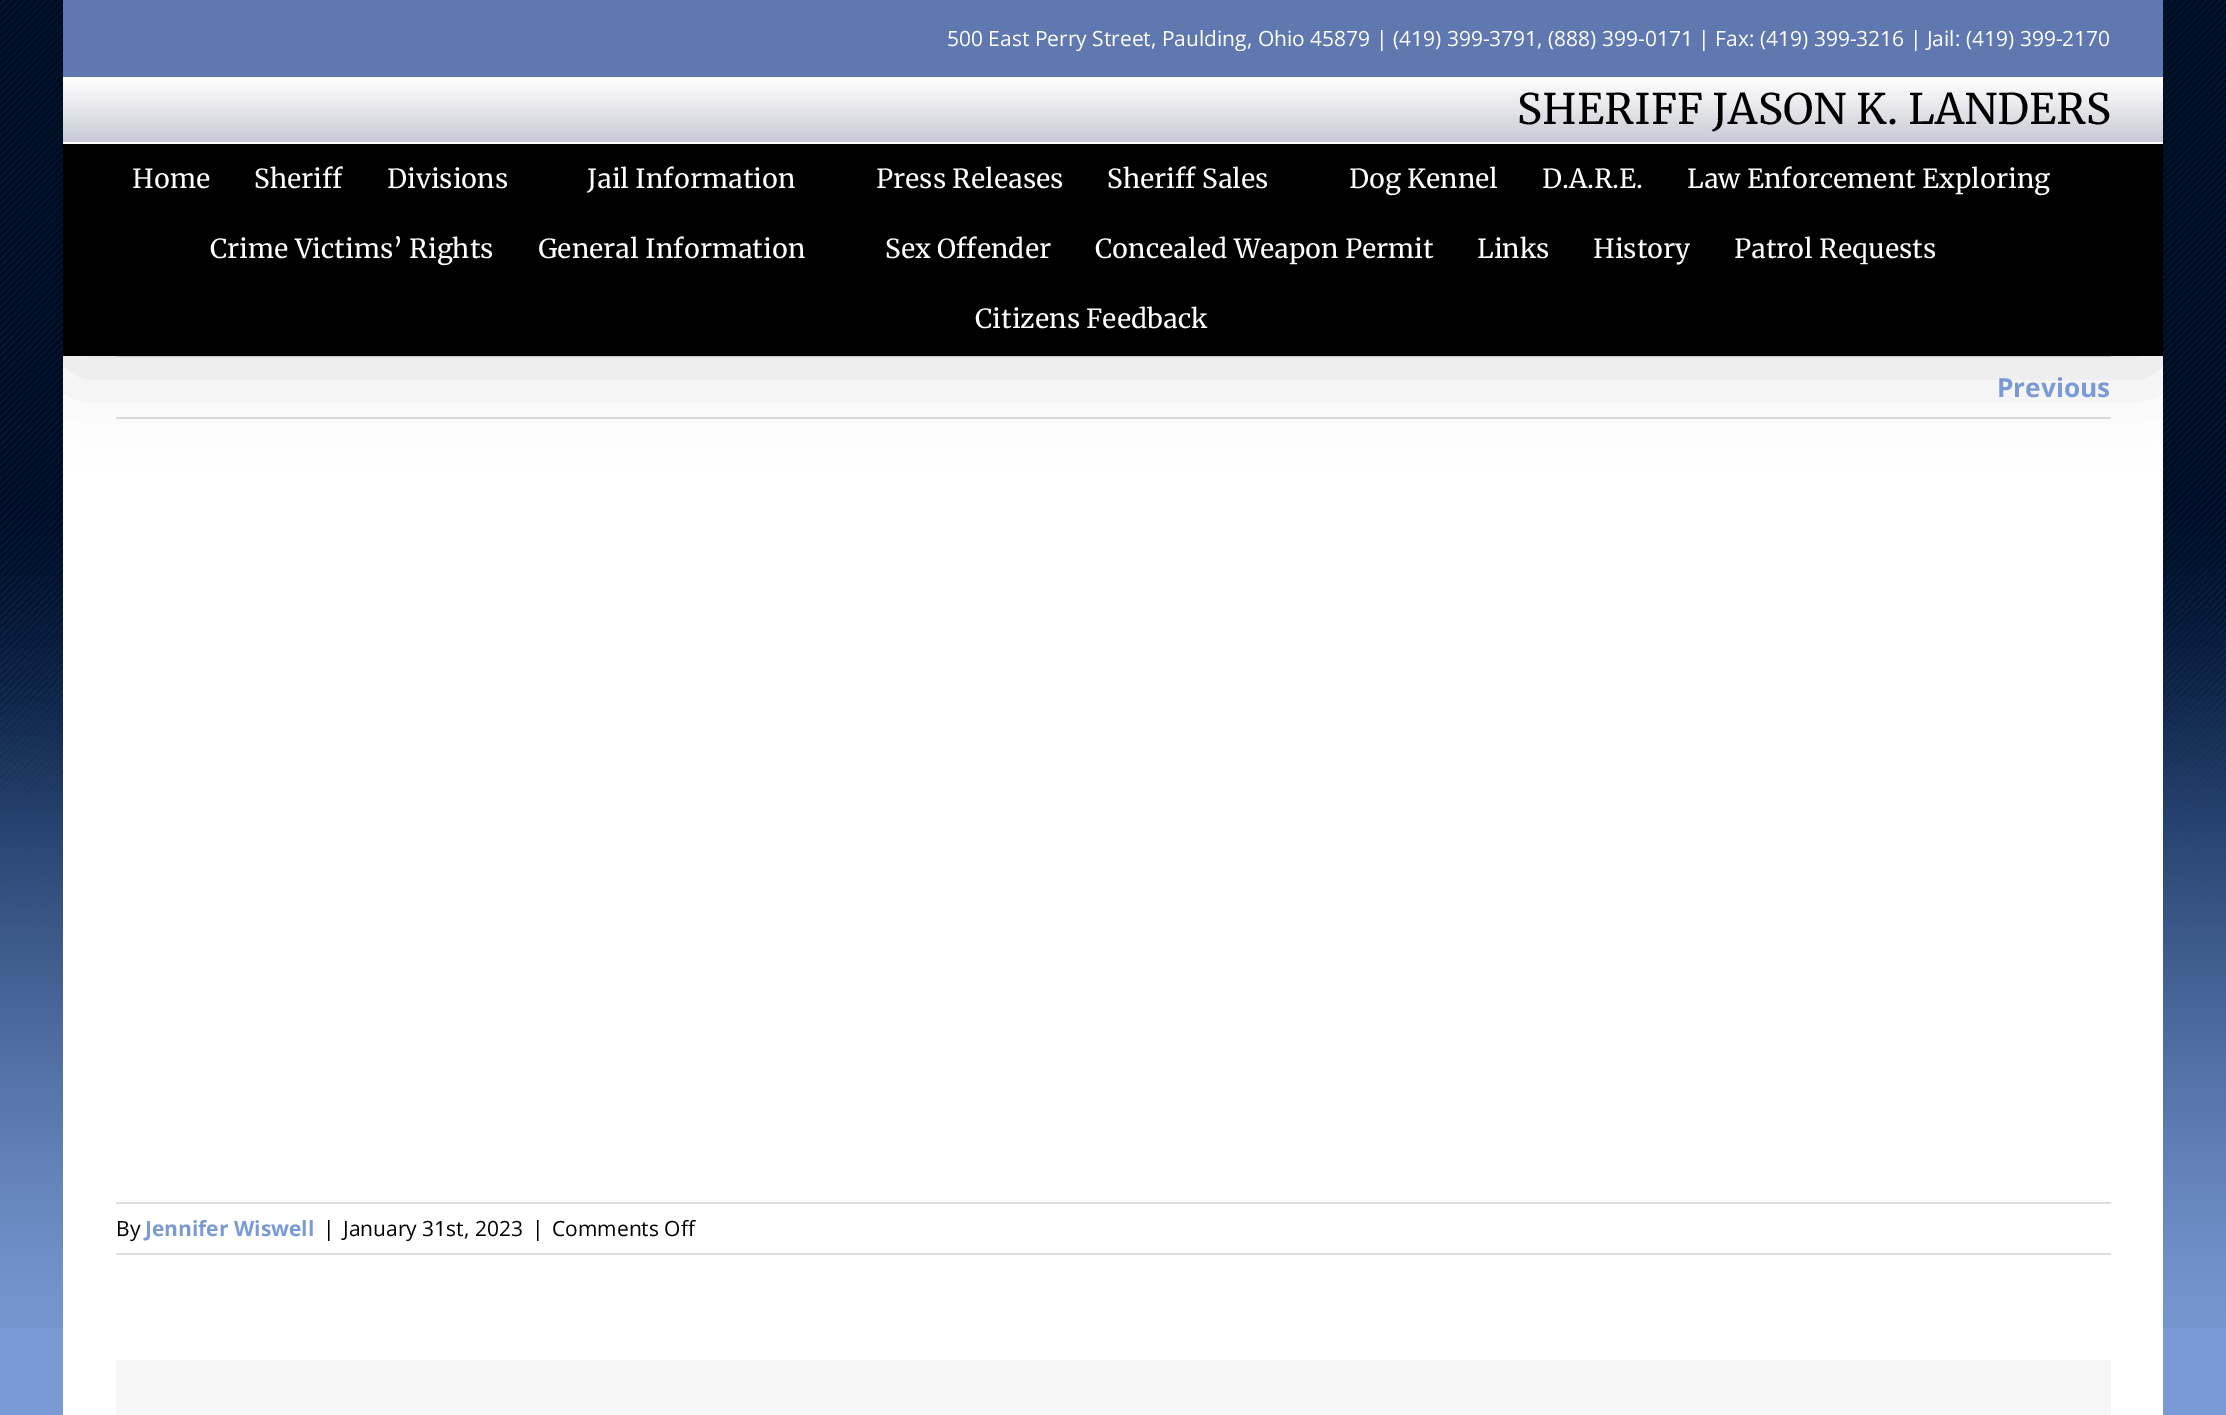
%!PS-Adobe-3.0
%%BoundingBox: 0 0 2226 1415
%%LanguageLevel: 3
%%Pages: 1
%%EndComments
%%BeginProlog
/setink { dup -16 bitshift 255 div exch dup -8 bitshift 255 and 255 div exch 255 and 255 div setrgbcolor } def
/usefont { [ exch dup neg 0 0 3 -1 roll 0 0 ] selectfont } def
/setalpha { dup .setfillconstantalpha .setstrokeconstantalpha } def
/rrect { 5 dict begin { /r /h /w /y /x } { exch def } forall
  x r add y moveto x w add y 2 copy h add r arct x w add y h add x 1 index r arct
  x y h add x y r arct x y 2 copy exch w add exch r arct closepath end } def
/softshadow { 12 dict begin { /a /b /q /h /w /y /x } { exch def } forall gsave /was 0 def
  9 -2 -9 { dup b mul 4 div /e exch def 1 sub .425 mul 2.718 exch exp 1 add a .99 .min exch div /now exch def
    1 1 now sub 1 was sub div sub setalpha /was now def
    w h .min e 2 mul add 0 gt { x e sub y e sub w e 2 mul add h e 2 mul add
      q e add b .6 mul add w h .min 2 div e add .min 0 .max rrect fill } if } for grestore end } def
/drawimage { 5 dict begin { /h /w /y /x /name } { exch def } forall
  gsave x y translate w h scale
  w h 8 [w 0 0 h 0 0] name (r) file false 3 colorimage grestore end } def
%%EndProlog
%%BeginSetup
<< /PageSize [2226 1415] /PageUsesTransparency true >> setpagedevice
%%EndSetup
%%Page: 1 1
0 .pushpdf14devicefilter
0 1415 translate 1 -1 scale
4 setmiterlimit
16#799AD4 setink
0 0 2226 1415 rectfill
(img1.raw) 0 0 2226 1328 drawimage
[
    [63 356 2100 1059 16#FFFFFF]
    [116 356 1995 1 16#E0DEDE]
    [116 417 1995 2 16#E0DEDE]
] { aload pop setink rectfill } forall
16#000000 setink
67 21 2093 348 0 44 0.14 softshadow
16#6078B0 setink
63 0 2100 77 rectfill
16#FFFFFF setink
63 77 2100 2 rectfill
/OpenSans-Regular 21 usefont
947 46 moveto (500 East Perry Street, Paulding, Ohio 45879 | \(419\) 399-3791, \(888\) 399-0171 | Fax: \(419\) 399-3216 | Jail: \(419\) 399-2170) show
63 142 2100 2 rectfill
gsave 63 79 moveto 2163 79 lineto 2163 142 lineto 63 142 lineto closepath clip newpath
<< /ShadingType 2 /ColorSpace /DeviceRGB /Coords [1113 79 1113 142] /Extend [true true] /Function << /FunctionType 2 /Domain [0 1] /C0 [1 1 1] /C1 [0.788 0.788 0.835] /N 1 >> >> shfill grestore
/Merriweather-Regular 42 usefont
16#000000 setink
1517 124 moveto (SHERIFF JASON K. LANDERS) show
63 144 2100 212 rectfill
/Merriweather-Regular 26.25 usefont
16#FFFFFF setink
[
    [(Home) 132 188]
    [(Sheriff) 254 188]
    [(Divisions) 387 188]
    [(Jail Information) 587 188]
    [(Press Releases) 876 188]
    [(Sheriff Sales) 1107 188]
    [(Dog Kennel) 1349 188]
    [(D.A.R.E.) 1542 188]
    [(Law Enforcement Exploring) 1687 188]
    [(Crime Victims’ Rights) 210 258]
    [(General Information) 538 258]
    [(Sex Offender) 885 258]
    [(Concealed Weapon Permit) 1095 258]
    [(Links) 1477 258]
    [(History) 1593 258]
    [(Patrol Requests) 1734 258]
    [(Citizens Feedback) 975 328]
] { aload pop moveto show } forall
/OpenSans-Bold 26.25 usefont
16#799AD4 setink
1997 397 moveto (Previous) show
16#E0DEDE setink
116 1202 1995 2 rectfill
116 1253 1995 2 rectfill
/OpenSans-Regular 21 usefont
16#000000 setink
116 1236 moveto (By) show
/OpenSans-Bold 21 usefont
16#799AD4 setink
145 1236 moveto (Jennifer Wiswell) show
/OpenSans-Regular 21 usefont
16#000000 setink
[
    [(|) 323 1236]
    [(January 31st, 2023) 343 1236]
    [(|) 532 1236]
    [(Comments Off) 552 1236]
] { aload pop moveto show } forall
16#F6F6F6 setink
116 1360 1995 55 rectfill
.poppdf14devicefilter showpage
%%EOF
